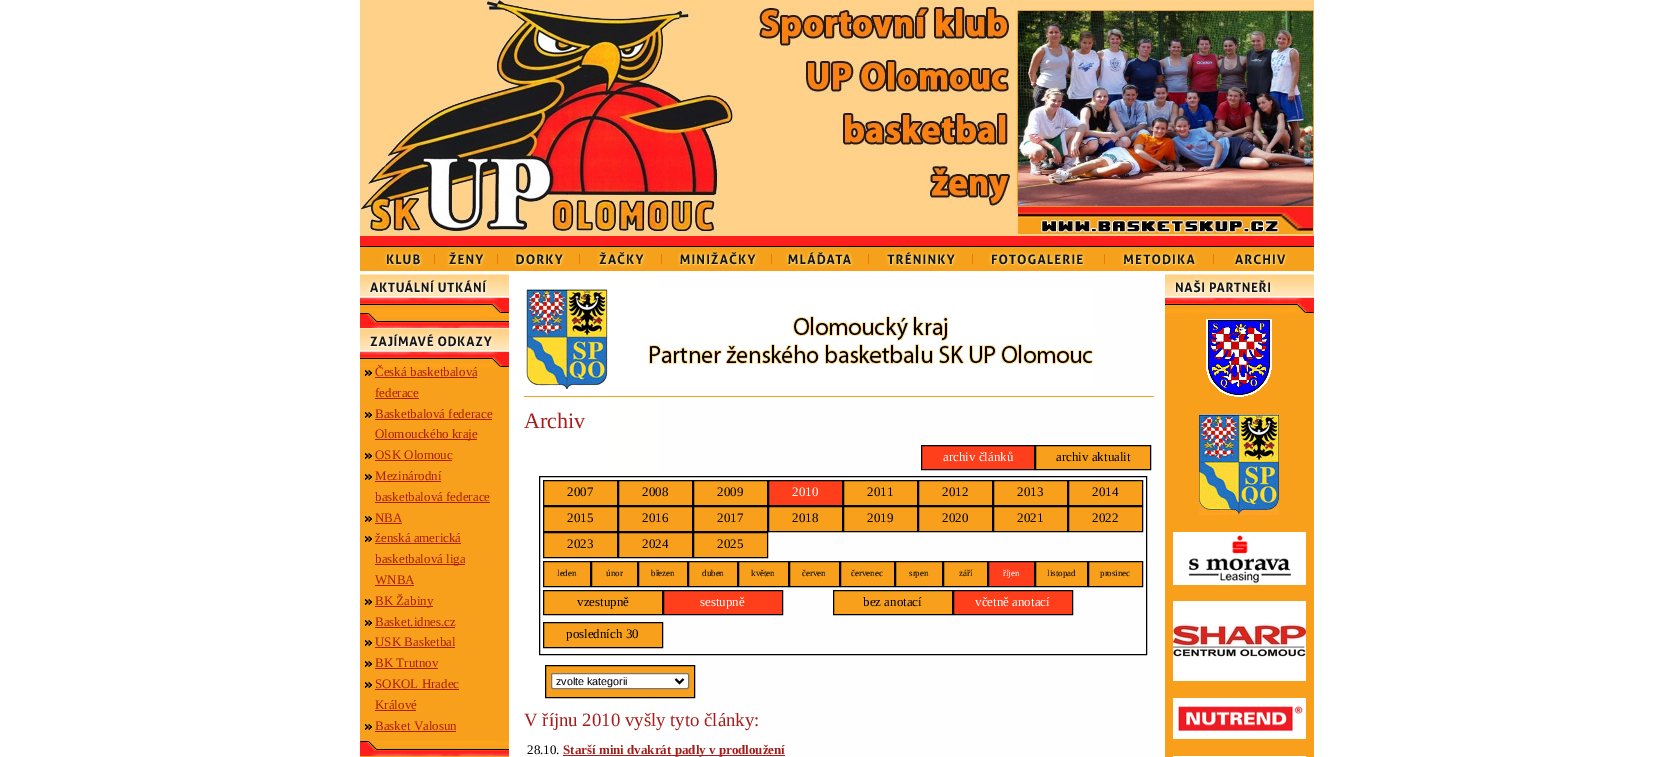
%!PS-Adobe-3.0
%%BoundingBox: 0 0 1673 757
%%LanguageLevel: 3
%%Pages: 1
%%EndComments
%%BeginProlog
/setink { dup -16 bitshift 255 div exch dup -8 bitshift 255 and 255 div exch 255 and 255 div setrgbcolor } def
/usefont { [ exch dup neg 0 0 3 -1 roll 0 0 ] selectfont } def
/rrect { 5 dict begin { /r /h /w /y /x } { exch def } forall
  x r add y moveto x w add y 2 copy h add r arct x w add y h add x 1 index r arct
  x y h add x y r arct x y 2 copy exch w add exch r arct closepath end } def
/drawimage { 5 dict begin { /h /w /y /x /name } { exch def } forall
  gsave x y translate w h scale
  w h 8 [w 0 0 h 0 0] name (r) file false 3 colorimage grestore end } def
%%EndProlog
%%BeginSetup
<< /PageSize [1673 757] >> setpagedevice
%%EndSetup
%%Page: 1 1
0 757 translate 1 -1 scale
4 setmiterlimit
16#FFFFFF setink
0 0 1673 757 rectfill
(img1.raw) 360 0 954 236 drawimage
(img2.raw) 1018 11 295 195 drawimage
16#F8A01B setink
360 268 954 3 rectfill
(img3.raw) 360 236 954 32 drawimage
(img4.raw) 360 274 954 483 drawimage
(img5.raw) 360 274 149 24 drawimage
(img6.raw) 360 298 149 15 drawimage
(img7.raw) 360 313 149 15 drawimage
(img8.raw) 360 328 149 24 drawimage
(img6.raw) 360 352 149 15 drawimage
(img9.raw) 365 370 7 6 drawimage
/LiberationSerif-Regular 13 usefont
16#AC1F0B setink
375 376 moveto (Česká basketbalová) show
375 377 102 1 rectfill
375 397 moveto (federace) show
375 398 44 1 rectfill
(img9.raw) 365 412 7 6 drawimage
375 418 moveto (Basketbalová federace) show
375 419 117 1 rectfill
375 439 102 1 rectfill
375 438 moveto (Olomouckého kraje) show
(img9.raw) 365 453 7 6 drawimage
375 459 moveto (OSK Olomouc) show
375 460 77 1 rectfill
(img9.raw) 365 474 7 6 drawimage
375 480 moveto (Mezinárodní) show
375 481 66 1 rectfill
375 501 moveto (basketbalová federace) show
375 502 115 1 rectfill
(img9.raw) 365 516 7 6 drawimage
375 522 moveto (NBA) show
375 523 27 1 rectfill
(img9.raw) 365 536 7 6 drawimage
375 542 moveto (ženská americká) show
375 543 86 1 rectfill
375 564 90 1 rectfill
375 563 moveto (basketbalová liga) show
375 584 moveto (WNBA) show
375 585 39 1 rectfill
(img9.raw) 365 599 7 6 drawimage
375 606 58 1 rectfill
375 605 moveto (BK Žabiny) show
(img9.raw) 365 620 7 6 drawimage
375 626 moveto (Basket.idnes.cz) show
375 627 80 1 rectfill
(img9.raw) 365 640 7 6 drawimage
375 646 moveto (USK Basketbal) show
375 647 80 1 rectfill
(img9.raw) 365 661 7 6 drawimage
375 667 moveto (BK Trutnov) show
375 668 63 1 rectfill
(img9.raw) 365 682 7 6 drawimage
375 688 moveto (SOKOL Hradec) show
375 689 84 1 rectfill
375 709 moveto (Králové) show
375 710 41 1 rectfill
(img9.raw) 365 724 7 6 drawimage
375 730 moveto (Basket Valosun) show
375 731 81 1 rectfill
(img7.raw) 360 741 149 15 drawimage
(img10.raw) 526 289 568 100 drawimage
16#F8A01B setink
524 396 630 1 rectfill
/LiberationSerif-Regular 22 usefont
16#A61C1A setink
524 428 moveto (Archiv) show
16#FF3E1C setink
921.5 445.5 moveto 1034.5 445.5 lineto 1034.5 469.5 lineto 921.5 469.5 lineto closepath gsave fill grestore
16#000000 setink
stroke
/LiberationSerif-Regular 13 usefont
16#FFFFFF setink
943 461 moveto (archiv článků) show
16#F8A01B setink
1035.5 445.5 moveto 1150.5 445.5 lineto 1150.5 469.5 lineto 1035.5 469.5 lineto closepath gsave fill grestore
16#000000 setink
stroke
1056 461 moveto (archiv aktualit) show
539.5 476.5 607 178 rectstroke
16#F8A01B setink
543.5 480.5 moveto 617.5 480.5 lineto 617.5 505.5 lineto 543.5 505.5 lineto closepath gsave fill grestore
16#000000 setink
stroke
567 496 moveto (2007) show
16#F8A01B setink
618.5 480.5 moveto 692.5 480.5 lineto 692.5 505.5 lineto 618.5 505.5 lineto closepath gsave fill grestore
16#000000 setink
stroke
642 496 moveto (2008) show
16#F8A01B setink
693.5 480.5 moveto 767.5 480.5 lineto 767.5 505.5 lineto 693.5 505.5 lineto closepath gsave fill grestore
16#000000 setink
stroke
717 496 moveto (2009) show
16#FF3E1C setink
768.5 480.5 moveto 842.5 480.5 lineto 842.5 505.5 lineto 768.5 505.5 lineto closepath gsave fill grestore
16#000000 setink
stroke
16#FFFFFF setink
792 496 moveto (2010) show
16#F8A01B setink
843.5 480.5 moveto 917.5 480.5 lineto 917.5 505.5 lineto 843.5 505.5 lineto closepath gsave fill grestore
16#000000 setink
stroke
867 496 moveto (2011) show
16#F8A01B setink
918.5 480.5 moveto 992.5 480.5 lineto 992.5 505.5 lineto 918.5 505.5 lineto closepath gsave fill grestore
16#000000 setink
stroke
942 496 moveto (2012) show
16#F8A01B setink
993.5 480.5 moveto 1067.5 480.5 lineto 1067.5 505.5 lineto 993.5 505.5 lineto closepath gsave fill grestore
16#000000 setink
stroke
1017 496 moveto (2013) show
16#F8A01B setink
1068.5 480.5 moveto 1142.5 480.5 lineto 1142.5 505.5 lineto 1068.5 505.5 lineto closepath gsave fill grestore
16#000000 setink
stroke
1092 496 moveto (2014) show
16#F8A01B setink
543.5 506.5 moveto 617.5 506.5 lineto 617.5 531.5 lineto 543.5 531.5 lineto closepath gsave fill grestore
16#000000 setink
stroke
567 522 moveto (2015) show
16#F8A01B setink
618.5 506.5 moveto 692.5 506.5 lineto 692.5 531.5 lineto 618.5 531.5 lineto closepath gsave fill grestore
16#000000 setink
stroke
642 522 moveto (2016) show
16#F8A01B setink
693.5 506.5 moveto 767.5 506.5 lineto 767.5 531.5 lineto 693.5 531.5 lineto closepath gsave fill grestore
16#000000 setink
stroke
717 522 moveto (2017) show
16#F8A01B setink
768.5 506.5 moveto 842.5 506.5 lineto 842.5 531.5 lineto 768.5 531.5 lineto closepath gsave fill grestore
16#000000 setink
stroke
792 522 moveto (2018) show
16#F8A01B setink
843.5 506.5 moveto 917.5 506.5 lineto 917.5 531.5 lineto 843.5 531.5 lineto closepath gsave fill grestore
16#000000 setink
stroke
867 522 moveto (2019) show
16#F8A01B setink
918.5 506.5 moveto 992.5 506.5 lineto 992.5 531.5 lineto 918.5 531.5 lineto closepath gsave fill grestore
16#000000 setink
stroke
942 522 moveto (2020) show
16#F8A01B setink
993.5 506.5 moveto 1067.5 506.5 lineto 1067.5 531.5 lineto 993.5 531.5 lineto closepath gsave fill grestore
16#000000 setink
stroke
1017 522 moveto (2021) show
16#F8A01B setink
1068.5 506.5 moveto 1142.5 506.5 lineto 1142.5 531.5 lineto 1068.5 531.5 lineto closepath gsave fill grestore
16#000000 setink
stroke
1092 522 moveto (2022) show
16#F8A01B setink
543.5 532.5 moveto 617.5 532.5 lineto 617.5 557.5 lineto 543.5 557.5 lineto closepath gsave fill grestore
16#000000 setink
stroke
567 548 moveto (2023) show
16#F8A01B setink
618.5 532.5 moveto 692.5 532.5 lineto 692.5 557.5 lineto 618.5 557.5 lineto closepath gsave fill grestore
16#000000 setink
stroke
642 548 moveto (2024) show
16#F8A01B setink
693.5 532.5 moveto 767.5 532.5 lineto 767.5 557.5 lineto 693.5 557.5 lineto closepath gsave fill grestore
16#000000 setink
stroke
717 548 moveto (2025) show
16#F8A01B setink
543.5 561.5 moveto 590.5 561.5 lineto 590.5 586.5 lineto 543.5 586.5 lineto closepath gsave fill grestore
16#000000 setink
stroke
/LiberationSerif-Regular 9 usefont
557 576 moveto (leden) show
16#F8A01B setink
591.5 561.5 moveto 637.5 561.5 lineto 637.5 586.5 lineto 591.5 586.5 lineto closepath gsave fill grestore
16#000000 setink
stroke
606 576 moveto (únor) show
16#F8A01B setink
638.5 561.5 moveto 687.5 561.5 lineto 687.5 586.5 lineto 638.5 586.5 lineto closepath gsave fill grestore
16#000000 setink
stroke
651 576 moveto (březen) show
16#F8A01B setink
688.5 561.5 moveto 737.5 561.5 lineto 737.5 586.5 lineto 688.5 586.5 lineto closepath gsave fill grestore
16#000000 setink
stroke
702 576 moveto (duben) show
16#F8A01B setink
738.5 561.5 moveto 788.5 561.5 lineto 788.5 586.5 lineto 738.5 586.5 lineto closepath gsave fill grestore
16#000000 setink
stroke
751 576 moveto (květen) show
16#F8A01B setink
789.5 561.5 moveto 839.5 561.5 lineto 839.5 586.5 lineto 789.5 586.5 lineto closepath gsave fill grestore
16#000000 setink
stroke
802 576 moveto (červen) show
16#F8A01B setink
840.5 561.5 moveto 894.5 561.5 lineto 894.5 586.5 lineto 840.5 586.5 lineto closepath gsave fill grestore
16#000000 setink
stroke
851 576 moveto (červenec) show
16#F8A01B setink
895.5 561.5 moveto 942.5 561.5 lineto 942.5 586.5 lineto 895.5 586.5 lineto closepath gsave fill grestore
16#000000 setink
stroke
909 576 moveto (srpen) show
16#F8A01B setink
943.5 561.5 moveto 987.5 561.5 lineto 987.5 586.5 lineto 943.5 586.5 lineto closepath gsave fill grestore
16#000000 setink
stroke
959 576 moveto (září) show
16#FF3E1C setink
988.5 561.5 moveto 1034.5 561.5 lineto 1034.5 586.5 lineto 988.5 586.5 lineto closepath gsave fill grestore
16#000000 setink
stroke
16#FFFFFF setink
1003 576 moveto (říjen) show
16#F8A01B setink
1035.5 561.5 moveto 1087.5 561.5 lineto 1087.5 586.5 lineto 1035.5 586.5 lineto closepath gsave fill grestore
16#000000 setink
stroke
1047 576 moveto (listopad) show
16#F8A01B setink
1088.5 561.5 moveto 1142.5 561.5 lineto 1142.5 586.5 lineto 1088.5 586.5 lineto closepath gsave fill grestore
16#000000 setink
stroke
1100 576 moveto (prosinec) show
16#F8A01B setink
543.5 590.5 moveto 662.5 590.5 lineto 662.5 614.5 lineto 543.5 614.5 lineto closepath gsave fill grestore
16#000000 setink
stroke
/LiberationSerif-Regular 13 usefont
577 606 moveto (vzestupně) show
16#FF3E1C setink
663.5 590.5 moveto 782.5 590.5 lineto 782.5 614.5 lineto 663.5 614.5 lineto closepath gsave fill grestore
16#000000 setink
stroke
16#FFFFFF setink
700 606 moveto (sestupně) show
16#F8A01B setink
833.5 590.5 moveto 952.5 590.5 lineto 952.5 614.5 lineto 833.5 614.5 lineto closepath gsave fill grestore
16#000000 setink
stroke
863 606 moveto (bez anotací) show
16#FF3E1C setink
953.5 590.5 moveto 1072.5 590.5 lineto 1072.5 614.5 lineto 953.5 614.5 lineto closepath gsave fill grestore
16#000000 setink
stroke
16#FFFFFF setink
975 606 moveto (včetně anotací) show
16#F8A01B setink
543.5 622.5 moveto 662.5 622.5 lineto 662.5 647.5 lineto 543.5 647.5 lineto closepath gsave fill grestore
16#000000 setink
stroke
566 638 moveto (posledních 30) show
16#F8A01B setink
545.5 665.5 moveto 694.5 665.5 lineto 694.5 697.5 lineto 545.5 697.5 lineto closepath gsave fill grestore
16#000000 setink
stroke
16#FFFFFF setink
551.5 673.5 137 15 1.5 rrect gsave fill grestore
16#767676 setink
stroke
16#000000 setink
2 setlinewidth
675.5 679 moveto 679.5 683 lineto 683.5 679 lineto stroke
/LiberationSans-Regular 10.75 usefont
556 685 moveto (zvolte kategorii) show
/LiberationSerif-Regular 18.8 usefont
16#A61C1A setink
524 726 moveto (V říjnu 2010 vyšly tyto články:) show
/LiberationSerif-Regular 13 usefont
16#000000 setink
527 754 moveto (28.10.) show
16#A61C1A setink
563 755 222 1 rectfill
/LiberationSerif-Bold 13 usefont
563 754 moveto (Starší mini dvakrát padly v prodloužení) show
(img11.raw) 1165 274 149 24 drawimage
(img6.raw) 1165 298 149 15 drawimage
(img12.raw) 1206 319 66 78 drawimage
(img13.raw) 1199 414 80 101 drawimage
(img14.raw) 1173 532 133 53 drawimage
(img15.raw) 1173 601 133 80 drawimage
(img16.raw) 1173 698 133 41 drawimage
16#FFFFFF setink
1173 756 133 1 rectfill
showpage
%%EOF
